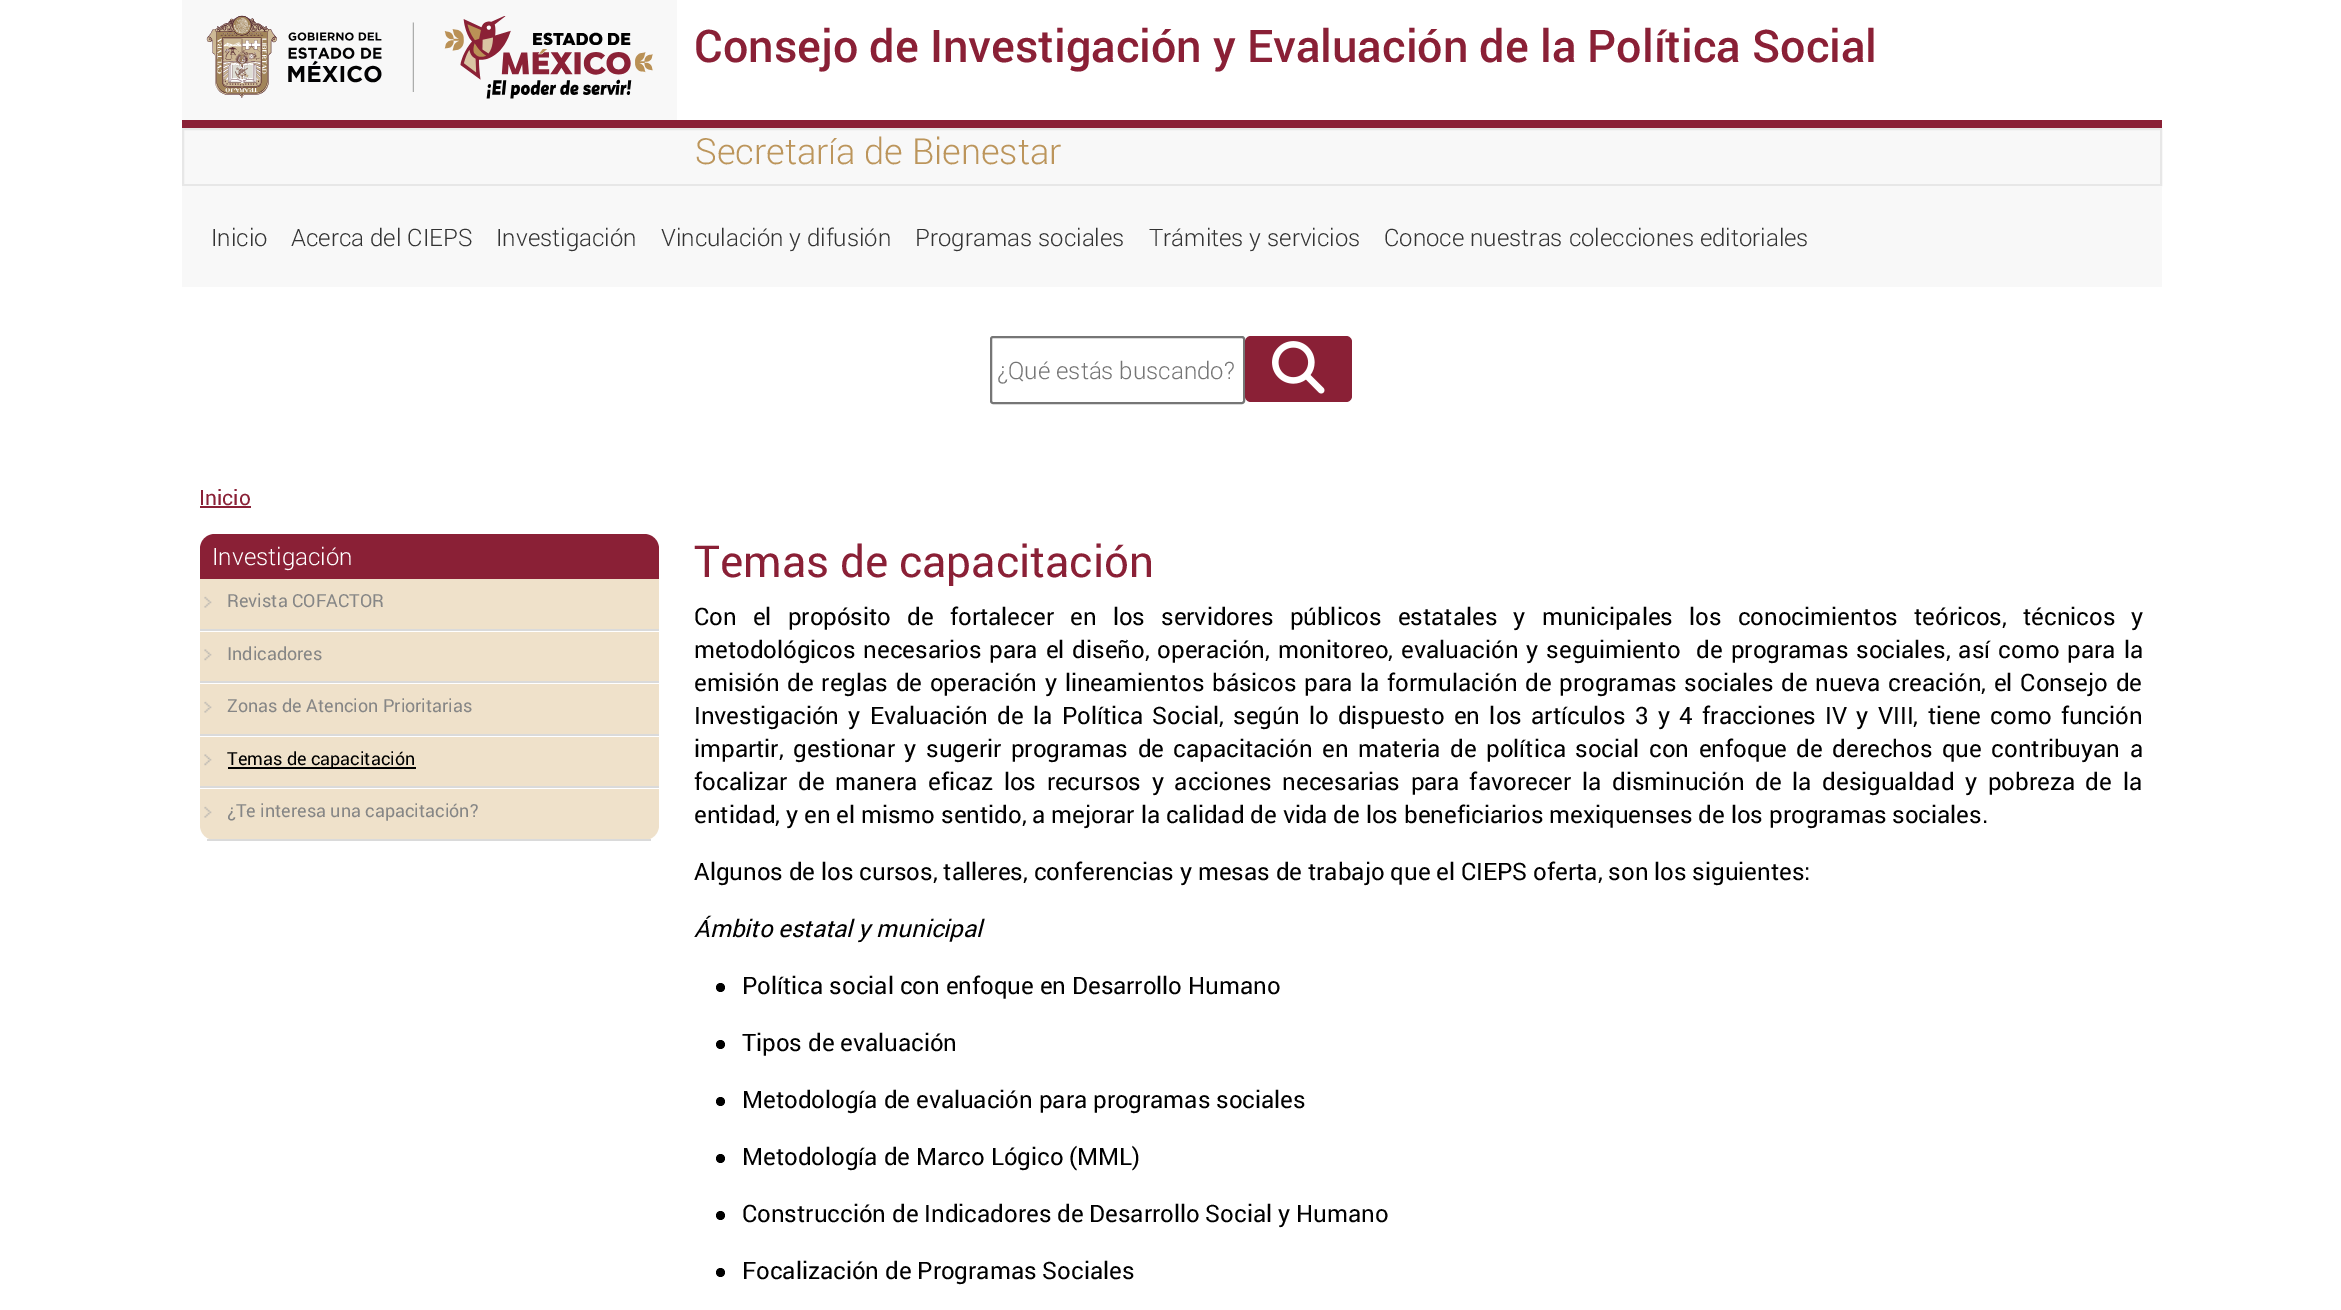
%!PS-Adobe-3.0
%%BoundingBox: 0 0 2341 1310
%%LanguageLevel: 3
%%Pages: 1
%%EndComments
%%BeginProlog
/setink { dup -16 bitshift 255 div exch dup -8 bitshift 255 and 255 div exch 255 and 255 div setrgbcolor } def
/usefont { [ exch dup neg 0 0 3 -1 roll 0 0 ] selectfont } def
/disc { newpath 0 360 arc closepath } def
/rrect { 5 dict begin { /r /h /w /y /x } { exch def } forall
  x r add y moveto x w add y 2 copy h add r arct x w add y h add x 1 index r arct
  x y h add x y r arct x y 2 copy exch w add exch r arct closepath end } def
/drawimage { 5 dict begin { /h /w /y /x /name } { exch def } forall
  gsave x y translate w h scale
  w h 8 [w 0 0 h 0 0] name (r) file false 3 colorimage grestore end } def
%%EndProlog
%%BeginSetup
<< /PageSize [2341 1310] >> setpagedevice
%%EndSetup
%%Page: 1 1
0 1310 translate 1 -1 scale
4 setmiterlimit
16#FFFFFF setink
0 0 2341 1310 rectfill
16#F8F8F8 setink
182 0 495 120 rectfill
16#8A2036 setink
182 120 1980 8 rectfill
(img1.raw) 206 15 447 84 drawimage
/Roboto-Medium 45 usefont
694 62 moveto (Consejo de Investigación y Evaluación de la Política Social) show
16#F8F8F8 setink
183 129 moveto 2161 129 lineto 2161 185 lineto 183 185 lineto closepath gsave fill grestore
16#E7E7E7 setink
2 setlinewidth
stroke
/Roboto-Light 36 usefont
16#BC955B setink
695 164 moveto (Secretaría de Bienestar) show
16#F8F8F8 setink
182 186 1980 101 rectfill
/Roboto-Light 24 usefont
16#333333 setink
[
    [(Inicio) 211 246]
    [(Acerca del CIEPS) 291 246]
    [(Investigación) 496 246]
    [(Vinculación y difusión) 661 246]
    [(Programas sociales) 915 246]
    [(Trámites y servicios) 1149 246]
    [(Conoce nuestras colecciones editoriales) 1384 246]
] { aload pop moveto show } forall
16#767676 setink
991 337 253 66 2 rrect stroke
16#757575 setink
997 379 moveto (¿Qué estás buscando?) show
16#8A2036 setink
1245 336 107 66 6 rrect fill
(img2.raw) 1272 341 53 53 drawimage
/roboto-Regular 21 usefont
199 505 moveto (Inicio) show
200 506 51 2 rectfill
215 534 moveto 644 534 lineto 652.5 534 659 540.5 659 549 curveto 659 579 lineto 200 579 lineto 200 549 lineto 200 540.5 206.5 534 215 534 curveto closepath fill
/Roboto-Light 24 usefont
16#FFFFFF setink
212 565 moveto (Investigación) show
16#EFE1CA setink
200 579 459 50 rectfill
(img3.raw) 204 596 8 12 drawimage
16#DADADA setink
200 629 459 2 rectfill
/roboto-Regular 18 usefont
16#868686 setink
227 607 moveto (Revista COFACTOR) show
16#EFE1CA setink
200 632 459 49 rectfill
(img4.raw) 204 649 8 12 drawimage
16#DADADA setink
200 681 459 2 rectfill
16#868686 setink
227 660 moveto (Indicadores) show
16#EFE1CA setink
200 684 459 50 rectfill
(img3.raw) 204 701 8 12 drawimage
16#DADADA setink
200 734 459 2 rectfill
16#868686 setink
227 712 moveto (Zonas de Atencion Prioritarias) show
16#EFE1CA setink
200 737 459 49 rectfill
(img4.raw) 204 754 8 12 drawimage
16#DADADA setink
200 786 459 2 rectfill
16#000000 setink
228 767 188 2 rectfill
227 765 moveto (Temas de capacitación) show
16#EFE1CA setink
200 789 moveto 659 789 lineto 659 825 lineto 659 833.5 652.5 840 644 840 curveto 215 840 lineto 206.5 840 200 833.5 200 825 curveto closepath fill
(img3.raw) 204 806 8 12 drawimage
16#DADADA setink
207 839 444 2 rectfill
16#868686 setink
227 817 moveto (¿Te interesa una capacitación?) show
/roboto-Regular 44 usefont
16#8A2036 setink
694 577 moveto (Temas de capacitación) show
/roboto-Regular 24 usefont
16#000000 setink
694 625 moveto 10.25 0 32 (Con el propósito de fortalecer en los servidores públicos estatales y municipales los conocimientos teóricos, técnicos y) widthshow
694 658 moveto 2.1 0 32 (metodológicos necesarios para el diseño, operación, monitoreo, evaluación y seguimiento  de programas sociales, así como para la) widthshow
694 691 moveto 1.8 0 32 (emisión de reglas de operación y lineamientos básicos para la formulación de programas sociales de nueva creación, el Consejo de) widthshow
694 724 moveto 3.4 0 32 (Investigación y Evaluación de la Política Social, según lo dispuesto en los artículos 3 y 4 fracciones IV y VIII, tiene como función) widthshow
694 757 moveto 3.6 0 32 (impartir, gestionar y sugerir programas de capacitación en materia de política social con enfoque de derechos que contribuyan a) widthshow
694 790 moveto 4.75 0 32 (focalizar de manera eficaz los recursos y acciones necesarias para favorecer la disminución de la desigualdad y pobreza de la) widthshow
694 823 moveto (entidad, y en el mismo sentido, a mejorar la calidad de vida de los beneficiarios mexiquenses de los programas sociales.) show
694 880 moveto (Algunos de los cursos, talleres, conferencias y mesas de trabajo que el CIEPS oferta, son los siguientes:) show
/roboto-Italic 24 usefont
694 937 moveto (Ámbito estatal y municipal) show
720.5 987.5 4.5 disc fill
/roboto-Regular 24 usefont
742 994 moveto (Política social con enfoque en Desarrollo Humano) show
720.5 1044.5 4.5 disc fill
742 1051 moveto (Tipos de evaluación) show
720.5 1101.5 4.5 disc fill
742 1108 moveto (Metodología de evaluación para programas sociales) show
720.5 1158.5 4.5 disc fill
742 1165 moveto (Metodología de Marco Lógico \(MML\)) show
720.5 1215.5 4.5 disc fill
742 1222 moveto (Construcción de Indicadores de Desarrollo Social y Humano) show
720.5 1272.5 4.5 disc fill
742 1279 moveto (Focalización de Programas Sociales) show
showpage
%%EOF
